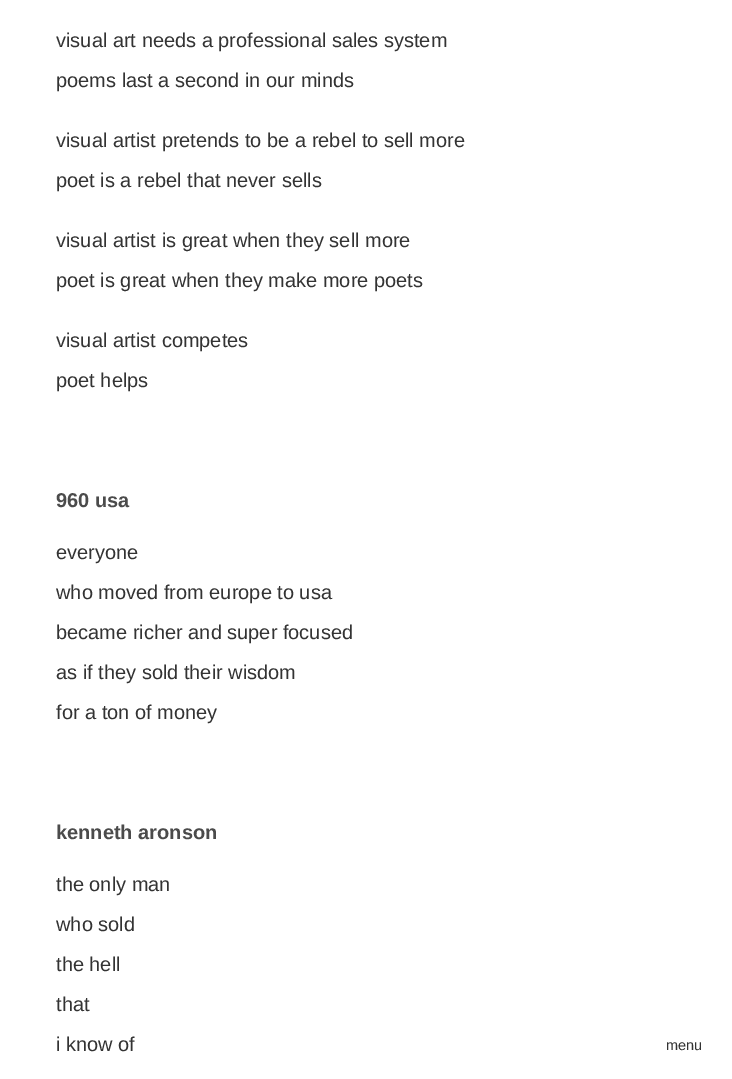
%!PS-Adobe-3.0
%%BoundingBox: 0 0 732 1079
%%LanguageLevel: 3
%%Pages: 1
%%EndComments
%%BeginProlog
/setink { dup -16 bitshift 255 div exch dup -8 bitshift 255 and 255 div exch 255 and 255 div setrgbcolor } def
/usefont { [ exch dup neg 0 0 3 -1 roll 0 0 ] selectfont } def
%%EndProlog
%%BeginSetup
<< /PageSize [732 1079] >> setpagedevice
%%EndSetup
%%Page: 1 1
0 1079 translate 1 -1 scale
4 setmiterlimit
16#FFFFFF setink
0 0 732 1079 rectfill
/LiberationSans-Regular 20 usefont
16#333333 setink
[
    [(visual art needs a professional sales system) 56 47]
    [(poems last a second in our minds) 56 87]
    [(visual artist pretends to be a rebel to sell more) 56 147]
    [(poet is a rebel that never sells) 56 187]
    [(visual artist is great when they sell more) 56 247]
    [(poet is great when they make more poets) 56 287]
    [(visual artist competes) 56 347]
    [(poet helps) 56 387]
] { aload pop moveto show } forall
/LiberationSans-Bold 20 usefont
16#4B4B4B setink
56 507 moveto (960 usa) show
/LiberationSans-Regular 20 usefont
16#333333 setink
[
    [(everyone) 56 559]
    [(who moved from europe to usa) 56 599]
    [(became richer and super focused) 56 639]
    [(as if they sold their wisdom) 56 679]
    [(for a ton of money) 56 719]
] { aload pop moveto show } forall
/LiberationSans-Bold 20 usefont
16#4B4B4B setink
56 839 moveto (kenneth aronson) show
/LiberationSans-Regular 20 usefont
16#333333 setink
[
    [(the only man) 56 891]
    [(who sold) 56 931]
    [(the hell) 56 971]
    [(that) 56 1011]
    [(i know of) 56 1051]
] { aload pop moveto show } forall
/LiberationSans-Regular 14.5 usefont
666 1050 moveto (menu) show
showpage
%%EOF
